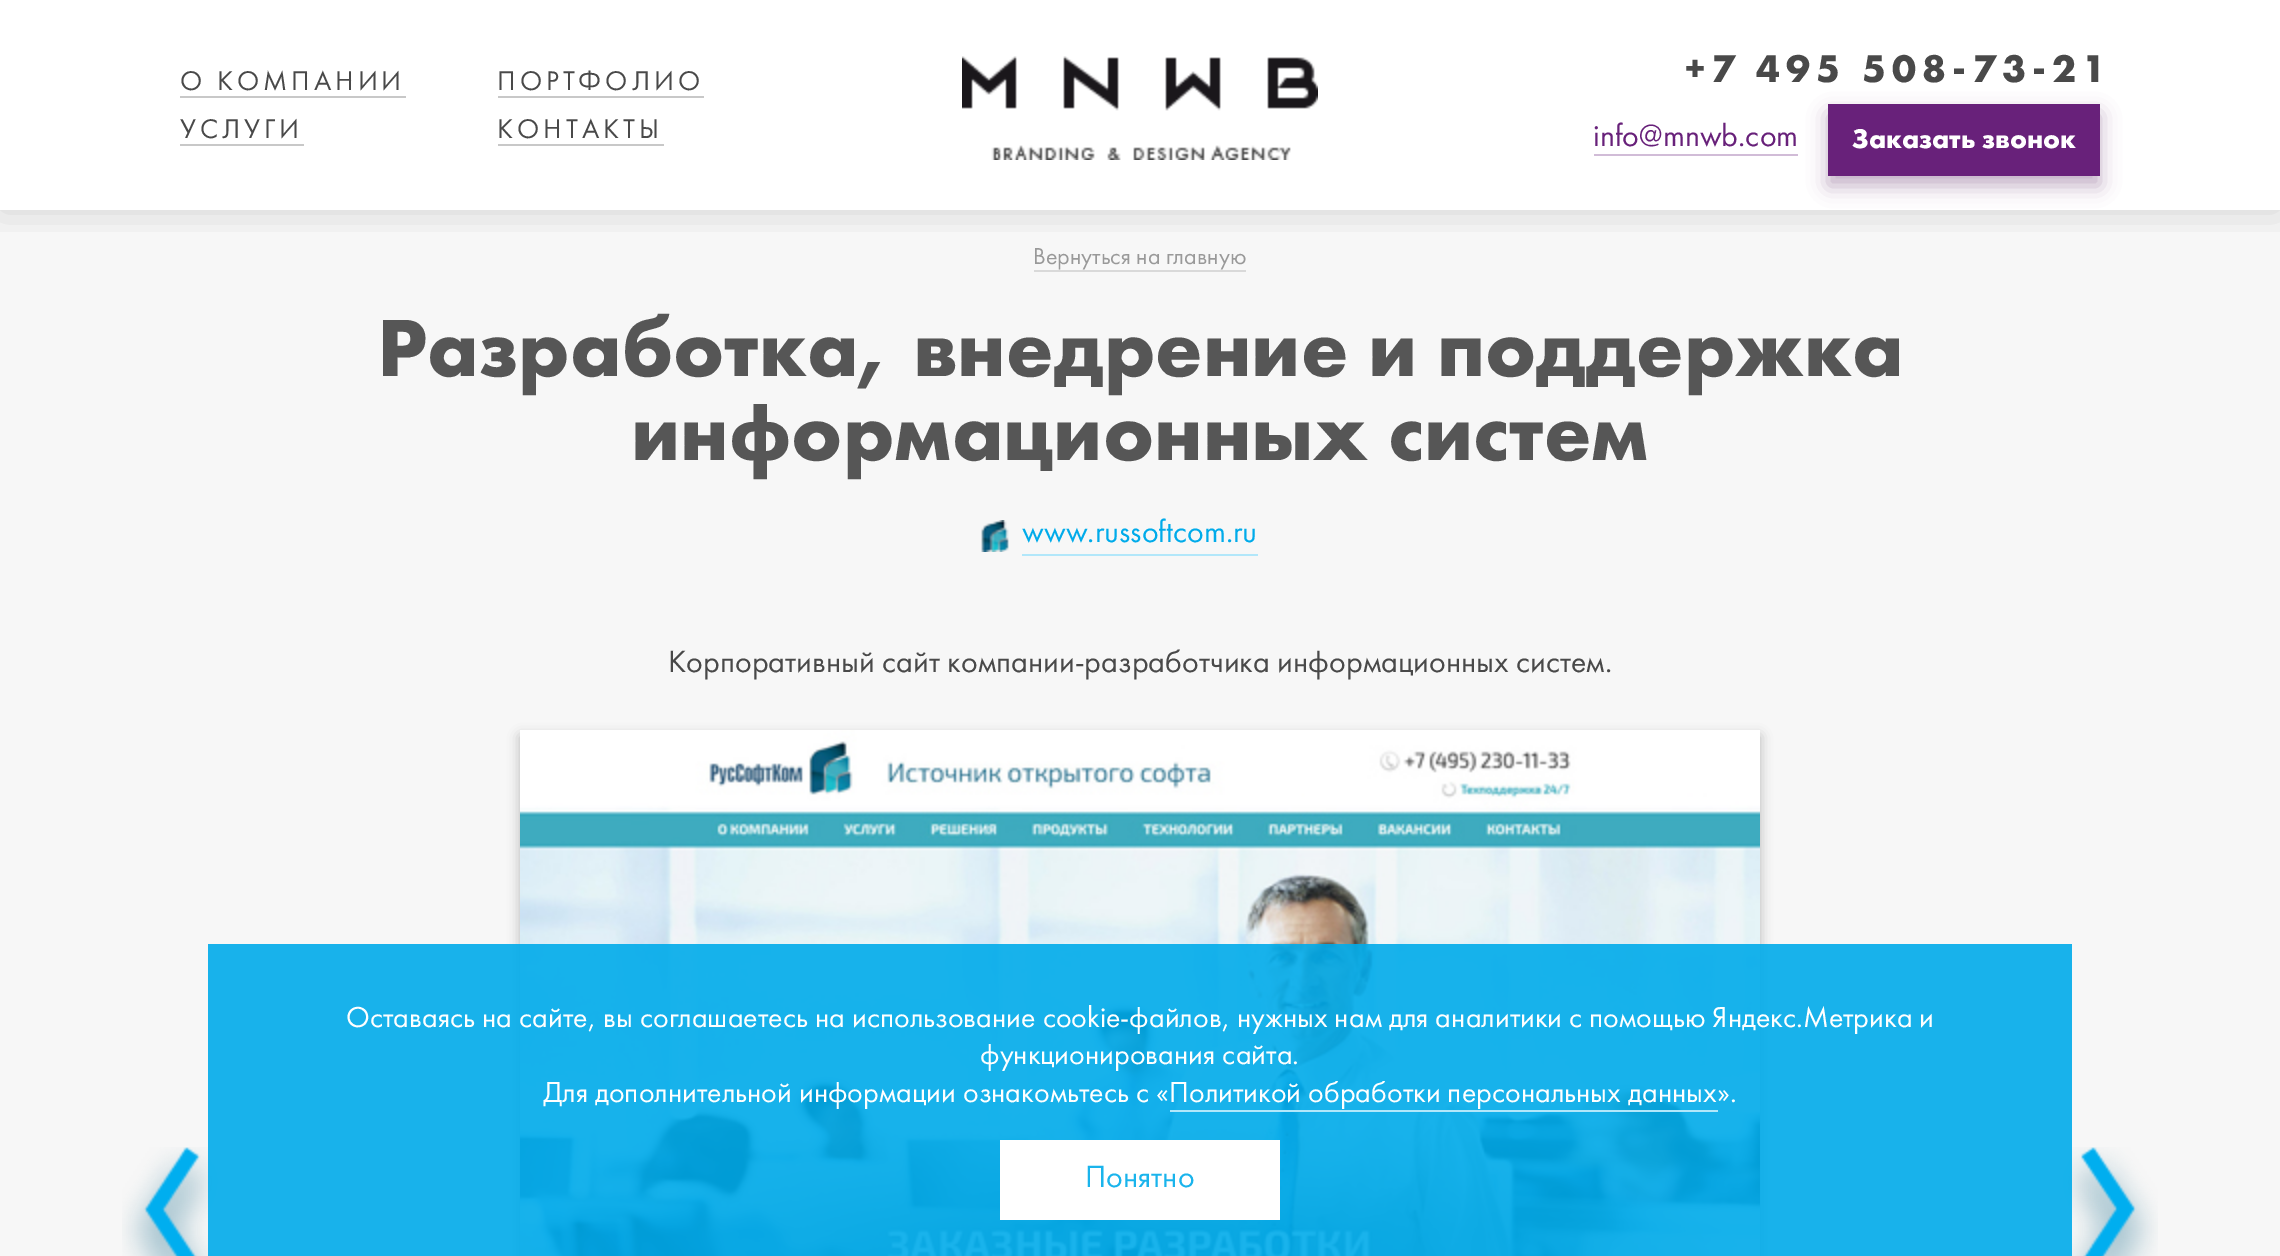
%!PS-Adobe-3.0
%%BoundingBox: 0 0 2280 1256
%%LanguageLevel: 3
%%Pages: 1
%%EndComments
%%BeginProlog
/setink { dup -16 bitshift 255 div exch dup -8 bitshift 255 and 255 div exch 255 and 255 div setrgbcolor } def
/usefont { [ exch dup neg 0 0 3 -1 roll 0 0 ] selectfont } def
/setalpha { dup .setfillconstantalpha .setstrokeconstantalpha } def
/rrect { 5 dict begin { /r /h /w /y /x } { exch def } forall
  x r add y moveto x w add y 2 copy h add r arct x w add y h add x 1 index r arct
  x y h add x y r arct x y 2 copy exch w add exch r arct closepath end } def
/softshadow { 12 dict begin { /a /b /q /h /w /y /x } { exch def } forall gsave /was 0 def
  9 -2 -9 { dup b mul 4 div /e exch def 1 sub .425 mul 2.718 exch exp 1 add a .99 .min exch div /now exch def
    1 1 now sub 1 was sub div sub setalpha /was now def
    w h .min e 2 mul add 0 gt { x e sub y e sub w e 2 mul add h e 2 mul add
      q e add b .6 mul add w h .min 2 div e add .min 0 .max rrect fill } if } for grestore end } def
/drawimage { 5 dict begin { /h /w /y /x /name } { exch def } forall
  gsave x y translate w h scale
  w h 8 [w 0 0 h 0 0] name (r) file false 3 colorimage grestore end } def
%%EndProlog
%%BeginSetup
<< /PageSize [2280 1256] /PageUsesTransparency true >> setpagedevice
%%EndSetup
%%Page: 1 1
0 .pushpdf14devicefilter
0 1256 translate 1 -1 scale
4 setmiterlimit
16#FFFFFF setink
0 0 2280 1256 rectfill
16#F7F7F7 setink
0 210 2280 1046 rectfill
16#D9D9D9 setink
1034 270 212 2 rectfill
gsave
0 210 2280 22 rectclip
16#000000 setink
0 0 2280 210 0 20 0.15 softshadow
grestore
/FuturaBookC-Regular 28 usefont
16#494949 setink
180 90 moveto 4 0 (О КОМПАНИИ) ashow
16#C8C8C8 setink
180 96 226 2 rectfill
16#494949 setink
497 90 moveto 4 0 (ПОРТФОЛИО) ashow
16#C8C8C8 setink
498 96 206 2 rectfill
16#494949 setink
180 138 moveto 4 0 (УСЛУГИ) ashow
16#C8C8C8 setink
180 144 124 2 rectfill
16#494949 setink
497 138 moveto 4 0 (КОНТАКТЫ) ashow
16#C8C8C8 setink
498 144 166 2 rectfill
(img1.raw) 962 56 356 104 drawimage
/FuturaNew-Bold 40 usefont
16#494949 setink
1685 82 moveto 6 0 (+7 495 508-73-21) ashow
/FuturaBookC-Regular 32 usefont
16#68217A setink
1593 146 moveto (info@mnwb.com) show
16#D1BCD7 setink
1594 154 204 2 rectfill
16#400049 setink
1828 114 272 72 0 10 0.32 softshadow
16#68217A setink
1828 104 272 72 rectfill
/FuturaNew-Bold 28 usefont
16#FFFFFF setink
1852 148 moveto (Заказать звонок) show
/FuturaBookC-Regular 24 usefont
16#999999 setink
1033 264 moveto (Вернуться на главную) show
/FuturaNew-Bold 84 usefont
16#565656 setink
377 376 moveto (Разработка, внедрение и поддержка) show
631 460 moveto (информационных систем) show
(img2.raw) 981 520 28 32 drawimage
16#B2E7FA setink
1022 554 236 2 rectfill
/FuturaBookC-Regular 32 usefont
16#00ABEA setink
1022 542 moveto (www.russoftcom.ru) show
16#494949 setink
668 672 moveto (Корпоративный сайт компании-разработчика информационных систем.) show
16#000000 setink
520 736 1240 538 0 6 0.26 softshadow
(img3.raw) 520 730 1240 526 drawimage
(img4.raw) 122 1147 98 109 drawimage
(img5.raw) 2060 1147 98 109 drawimage
0.9 setalpha
16#00ABEA setink
208 944 1864 312 rectfill
/FuturaBookC-Regular 30 usefont
1 setalpha
16#FFFFFF setink
[
    [(Оставаясь на сайте, вы соглашаетесь на использование cookie-файлов, нужных нам для аналитики с помощью Яндекс.Метрика и) 346 1027]
    [(функционирования сайта.) 980 1064]
    [(Для дополнительной информации ознакомьтесь с «Политикой обработки персональных данных) 543 1102]
    [(».) 1717 1102]
] { aload pop moveto show } forall
16#B2E7FA setink
1170 1110 548 2 rectfill
16#FFFFFF setink
1000 1140 280 80 rectfill
/FuturaBookC-Regular 32 usefont
16#1AB4EC setink
1085 1187 moveto (Понятно) show
.poppdf14devicefilter showpage
%%EOF
